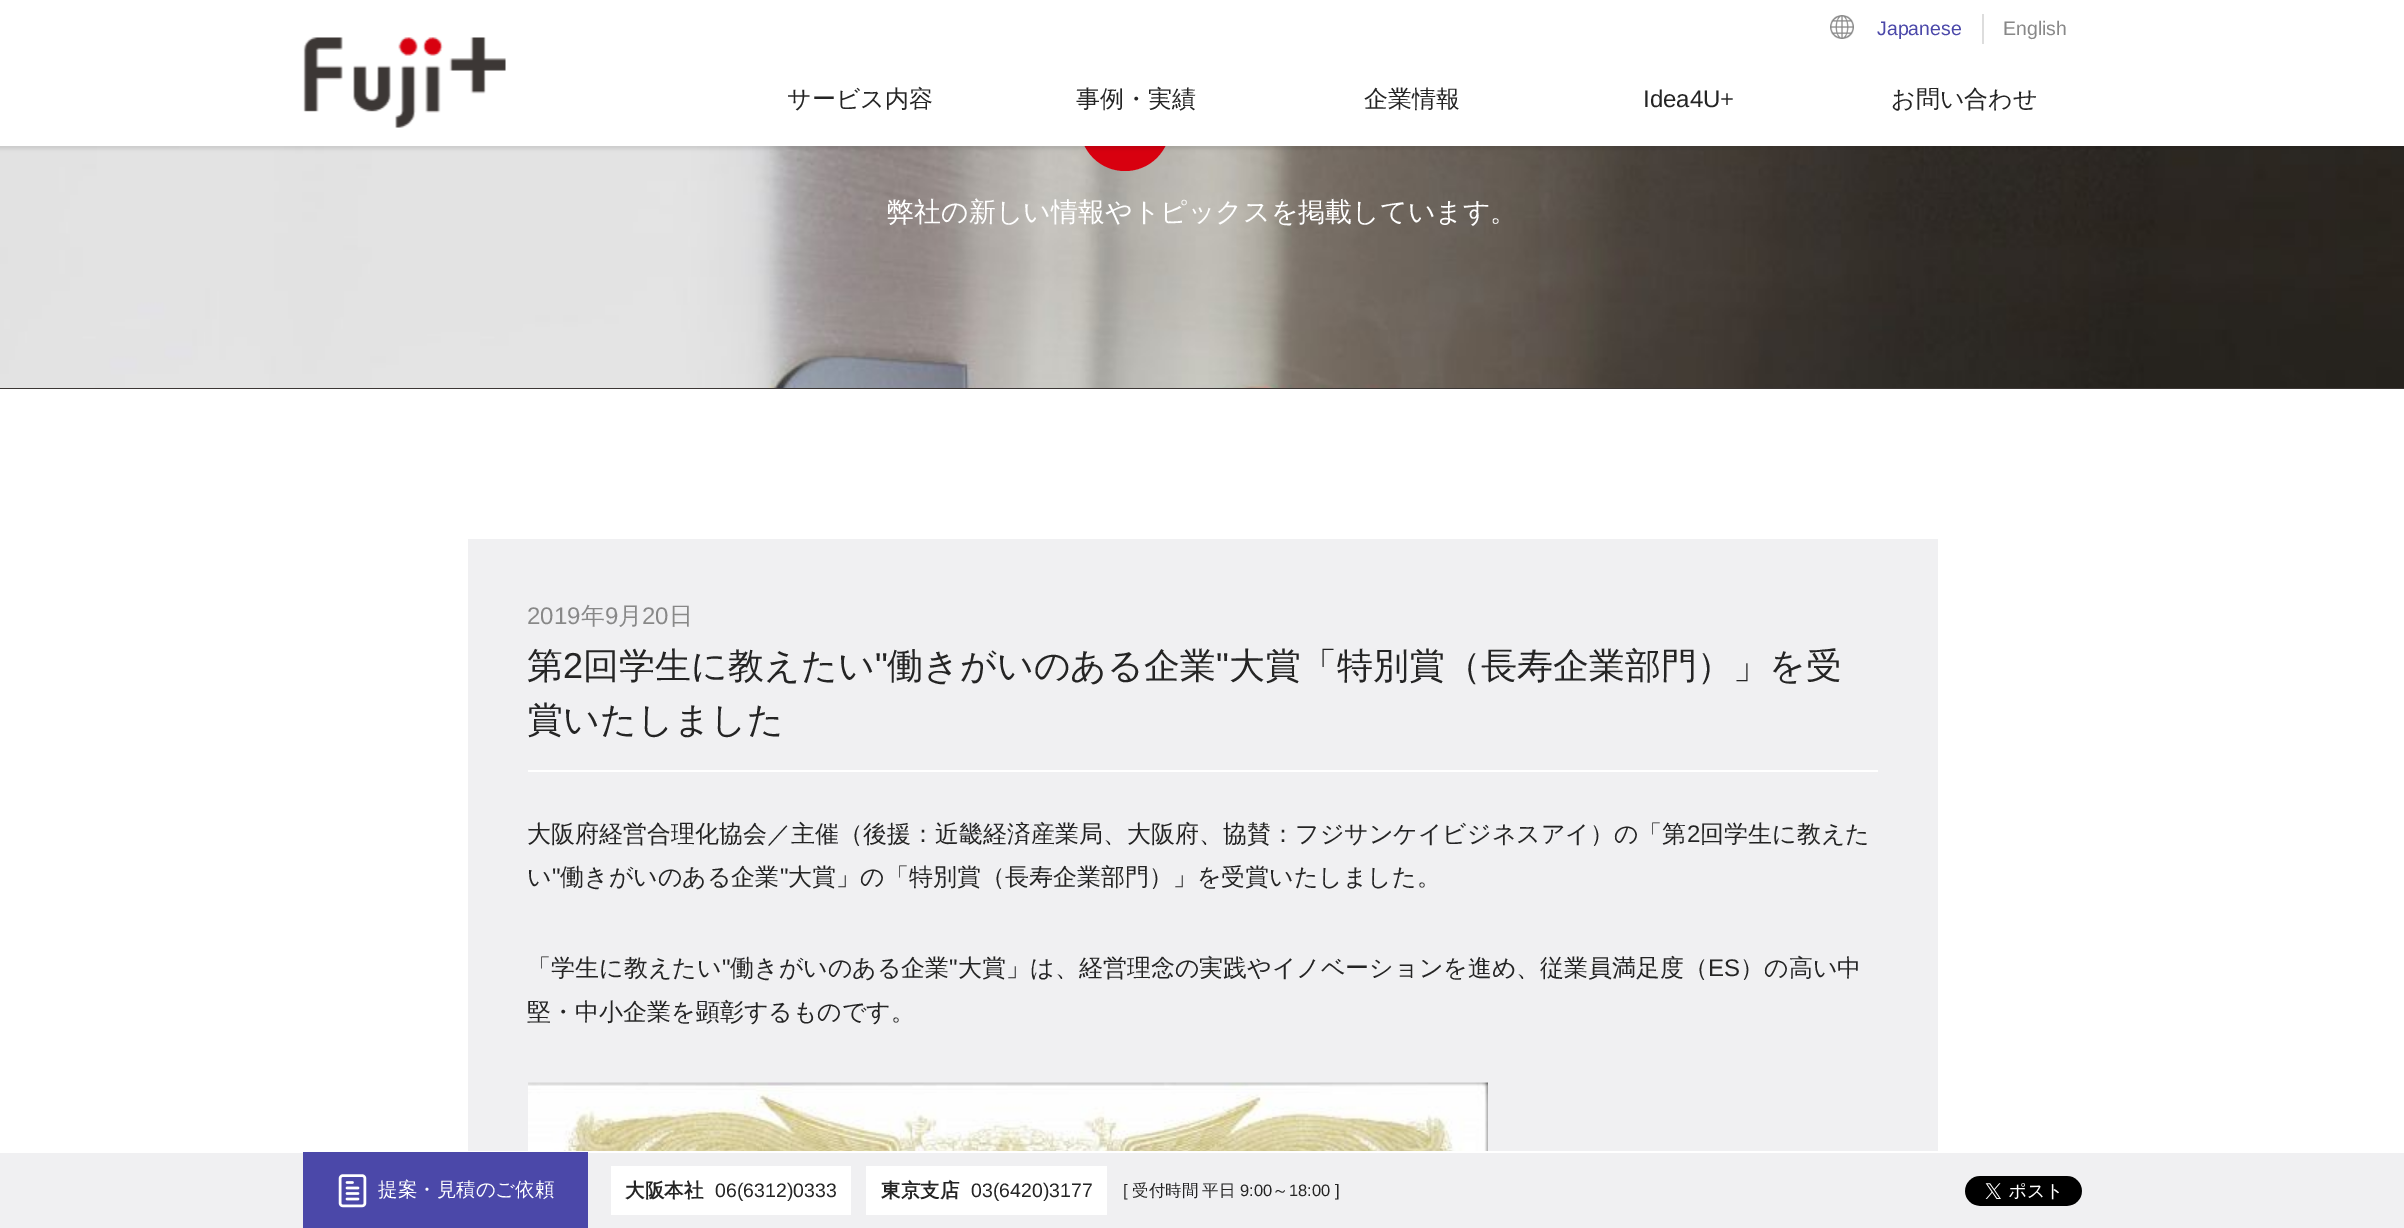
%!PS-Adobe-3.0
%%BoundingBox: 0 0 2404 1228
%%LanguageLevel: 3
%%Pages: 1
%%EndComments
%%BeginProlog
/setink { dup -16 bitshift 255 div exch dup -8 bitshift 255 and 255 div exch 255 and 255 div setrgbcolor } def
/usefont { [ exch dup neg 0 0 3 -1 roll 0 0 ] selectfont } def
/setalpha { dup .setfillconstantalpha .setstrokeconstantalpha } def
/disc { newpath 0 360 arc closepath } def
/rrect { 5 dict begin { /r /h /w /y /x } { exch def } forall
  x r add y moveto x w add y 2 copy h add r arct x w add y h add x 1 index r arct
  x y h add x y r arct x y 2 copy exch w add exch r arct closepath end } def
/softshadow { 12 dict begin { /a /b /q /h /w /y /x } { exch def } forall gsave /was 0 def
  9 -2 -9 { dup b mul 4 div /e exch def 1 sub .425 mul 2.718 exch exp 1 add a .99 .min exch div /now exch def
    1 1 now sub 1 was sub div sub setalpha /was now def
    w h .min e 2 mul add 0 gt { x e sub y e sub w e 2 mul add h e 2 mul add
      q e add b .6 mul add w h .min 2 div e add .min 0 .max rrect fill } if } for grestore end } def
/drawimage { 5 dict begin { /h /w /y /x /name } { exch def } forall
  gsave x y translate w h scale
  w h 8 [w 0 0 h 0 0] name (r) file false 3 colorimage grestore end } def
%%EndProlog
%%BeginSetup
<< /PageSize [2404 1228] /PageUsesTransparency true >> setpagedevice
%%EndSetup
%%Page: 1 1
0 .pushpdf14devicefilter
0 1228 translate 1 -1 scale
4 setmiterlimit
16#FFFFFF setink
0 0 2404 1228 rectfill
(img3.raw) 0 146 2404 242 drawimage
16#D8000F setink
1125 126 45 disc fill
16#000000 setink
-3 -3 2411 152 0 1.5 0.1 softshadow
16#FFFFFF setink
0 0 2404 146 rectfill
(img1.raw) 303 37 203 91 drawimage
(img2.raw) 1830 15 24 24 drawimage
/LiberationSans-Regular 19.5 usefont
16#4B48A9 setink
1877 35 moveto (Japanese) show
16#DDDDDD setink
1982 14 2 30 rectfill
16#888888 setink
2003 35 moveto (English) show
/WenQuanYiZenHei-Medium 24 usefont
16#242424 setink
[
    [(サービス内容) 787 107]
    [(事例・実績) 1076 107]
    [(企業情報) 1364 107]
] { aload pop moveto show } forall
/LiberationSans-Regular 24 usefont
1643 107 moveto (Idea4U+) show
/WenQuanYiZenHei-Medium 24 usefont
1891 107 moveto (お問い合わせ) show
16#3C3735 setink
0 388 2404 1 rectfill
/WenQuanYiZenHei-Medium 27 usefont
16#FFFFFF setink
887 221 moveto (弊社の新しい情報やトピックスを掲載しています。) show
16#F0F0F2 setink
468 539 1470 612 rectfill
/LiberationSans-Regular 24 usefont
16#888888 setink
527 624 moveto (2019) show
/WenQuanYiZenHei-Medium 24 usefont
581 624 moveto (年) show
/LiberationSans-Regular 24 usefont
605 624 moveto (9) show
/WenQuanYiZenHei-Medium 24 usefont
618 624 moveto (月) show
/LiberationSans-Regular 24 usefont
642 624 moveto (20) show
/WenQuanYiZenHei-Medium 24 usefont
669 624 moveto (日) show
16#FFFFFF setink
528 770 1350 2 rectfill
/WenQuanYiZenHei-Medium 36 usefont
16#242424 setink
527 678 moveto (第) show
/LiberationSans-Regular 36 usefont
563 678 moveto (2) show
/WenQuanYiZenHei-Medium 36 usefont
583 678 moveto (回学生に教えたい) show
/LiberationSans-Regular 36 usefont
875 678 moveto (") show
/WenQuanYiZenHei-Medium 36 usefont
887 678 moveto (働きがいのある企業) show
/LiberationSans-Regular 36 usefont
1216 678 moveto (") show
/WenQuanYiZenHei-Medium 36 usefont
1229 678 moveto (大賞「特別賞（長寿企業部門）」を受) show
527 732 moveto (賞いたしました) show
/WenQuanYiZenHei-Medium 24 usefont
527 842 moveto (大阪府経営合理化協会／主催（後援：近畿経済産業局、大阪府、協賛：フジサンケイビジネスアイ）の「第) show
/LiberationSans-Regular 24 usefont
1687 842 moveto (2) show
/WenQuanYiZenHei-Medium 24 usefont
1700 842 moveto (回学生に教えた) show
527 885 moveto (い) show
/LiberationSans-Regular 24 usefont
552 885 moveto (") show
/WenQuanYiZenHei-Medium 24 usefont
560 885 moveto (働きがいのある企業) show
/LiberationSans-Regular 24 usefont
780 885 moveto (") show
/WenQuanYiZenHei-Medium 24 usefont
788 885 moveto (大賞」の「特別賞（長寿企業部門）」を受賞いたしました。) show
527 976 moveto (「学生に教えたい) show
/LiberationSans-Regular 24 usefont
722 976 moveto (") show
/WenQuanYiZenHei-Medium 24 usefont
730 976 moveto (働きがいのある企業) show
/LiberationSans-Regular 24 usefont
949 976 moveto (") show
/WenQuanYiZenHei-Medium 24 usefont
958 976 moveto (大賞」は、経営理念の実践やイノベーションを進め、従業員満足度（) show
/LiberationSans-Regular 24 usefont
1708 976 moveto (ES) show
/WenQuanYiZenHei-Medium 24 usefont
1740 976 moveto (）の高い中) show
527 1020 moveto (堅・中小企業を顕彰するものです。) show
(img4.raw) 528 1082 960 69 drawimage
16#F0F0F2 setink
0 1153 2404 75 rectfill
16#4B48A9 setink
303 1152 285 76 rectfill
(img5.raw) 338 1174 29 34 drawimage
/WenQuanYiZenHei-Medium 19.5 usefont
16#FFFFFF setink
378 1196 moveto (提案・見積のご依頼) show
611 1166 240 49 rectfill
/WenQuanYiZenHei-Bold 19.5 usefont
16#242424 setink
625 1197 moveto (大阪本社) show
/LiberationSans-Regular 19.5 usefont
715 1197 moveto (06\(6312\)0333) show
16#FFFFFF setink
866 1166 241 49 rectfill
/WenQuanYiZenHei-Bold 19.5 usefont
16#242424 setink
881 1197 moveto (東京支店) show
/LiberationSans-Regular 19.5 usefont
971 1197 moveto (03\(6420\)3177) show
/LiberationSans-Regular 16.5 usefont
1123 1196 moveto ([) show
/WenQuanYiZenHei-Medium 16.5 usefont
1132 1196 moveto (受付時間) show
1202 1196 moveto (平日) show
/LiberationSans-Regular 16.5 usefont
1240 1196 moveto (9:00) show
/WenQuanYiZenHei-Medium 16.5 usefont
1272 1196 moveto (～) show
/LiberationSans-Regular 16.5 usefont
1289 1196 moveto (18:00 ]) show
(img6.raw) 1965 1176 117 30 drawimage
.poppdf14devicefilter showpage
%%EOF
